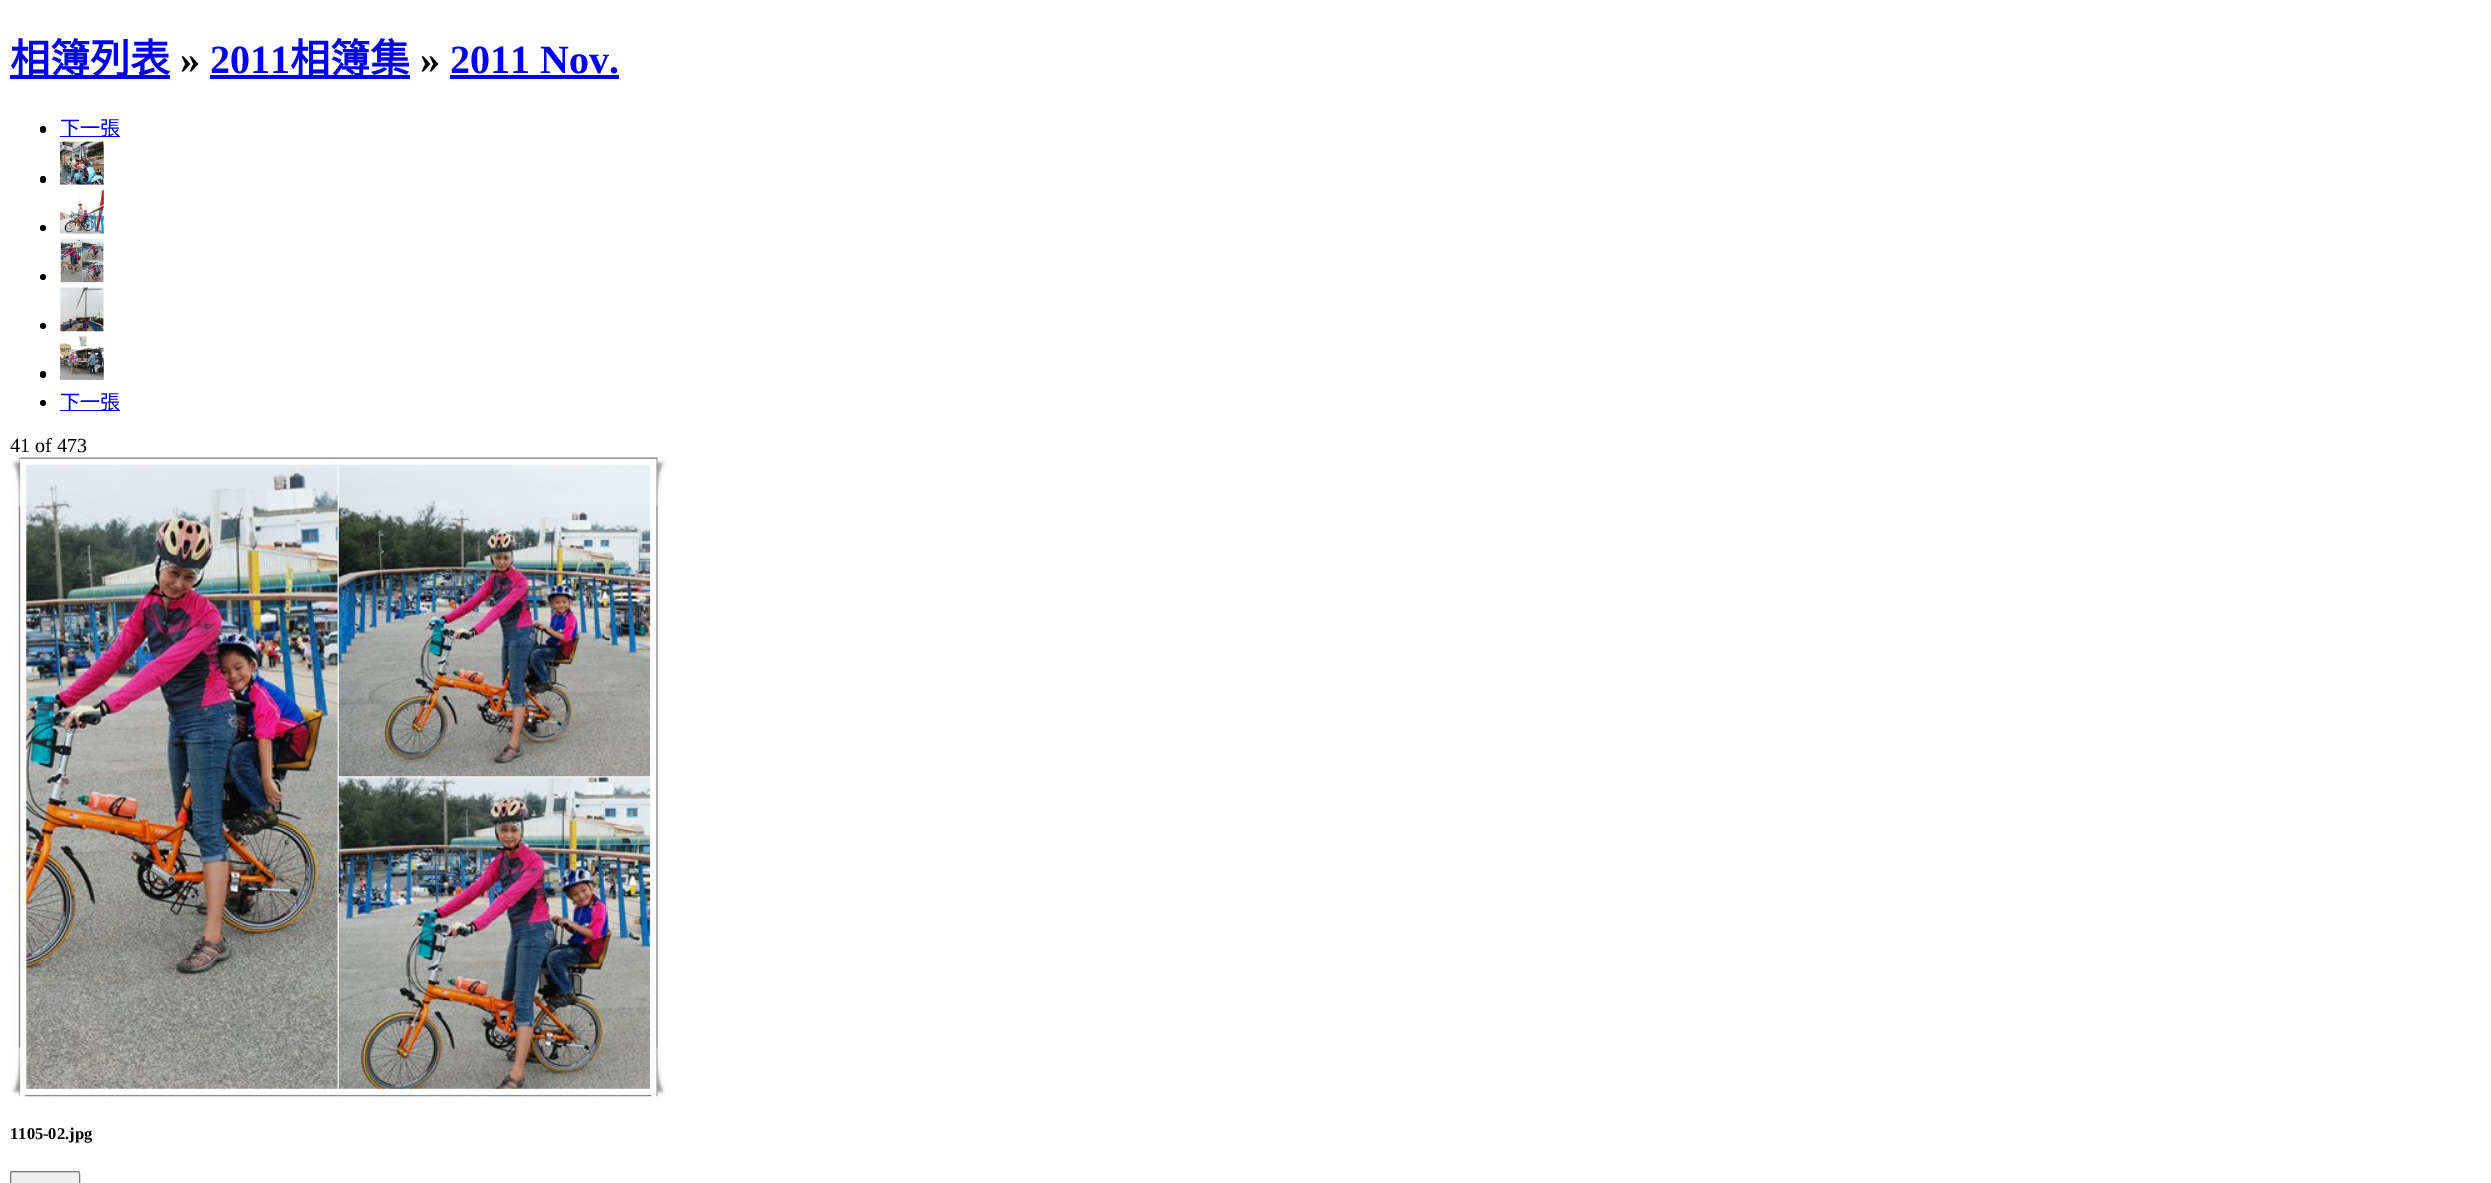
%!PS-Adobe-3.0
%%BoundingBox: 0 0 2491 1183
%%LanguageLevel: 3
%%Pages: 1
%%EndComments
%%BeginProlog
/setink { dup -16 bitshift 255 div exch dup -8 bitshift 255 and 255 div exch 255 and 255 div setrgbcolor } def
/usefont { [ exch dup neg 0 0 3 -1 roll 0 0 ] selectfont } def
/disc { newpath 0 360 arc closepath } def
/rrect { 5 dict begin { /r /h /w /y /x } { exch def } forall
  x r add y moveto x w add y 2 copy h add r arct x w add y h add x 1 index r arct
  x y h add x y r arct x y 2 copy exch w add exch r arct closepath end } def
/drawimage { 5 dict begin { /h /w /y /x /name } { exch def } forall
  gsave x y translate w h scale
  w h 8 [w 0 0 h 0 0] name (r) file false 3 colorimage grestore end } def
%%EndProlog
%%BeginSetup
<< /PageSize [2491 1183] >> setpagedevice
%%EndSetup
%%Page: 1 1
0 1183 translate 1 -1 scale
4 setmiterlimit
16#FFFFFF setink
0 0 2491 1183 rectfill
16#0000EE setink
10 75 160 4 rectfill
/NotoSansCJKTC-Bold 40 usefont
10 73 moveto (相簿列表) show
/LiberationSerif-Bold 40 usefont
16#000000 setink
180 73 moveto (») show
16#0000EE setink
210 73 moveto (2011) show
210 75 200 4 rectfill
/NotoSansCJKTC-Bold 40 usefont
290 73 moveto (相簿集) show
/LiberationSerif-Bold 40 usefont
16#000000 setink
420 73 moveto (») show
16#0000EE setink
450 73 moveto (2011 Nov.) show
450 75 169 4 rectfill
16#000000 setink
40 126 6 7 3 rrect fill
16#0000EE setink
60 136 60 1 rectfill
/NotoSansCJKTC-Regular 20 usefont
60 135 moveto (下一張) show
16#000000 setink
40 176 6 7 3 rrect fill
(img1.raw) 60 141 44 44 drawimage
43 228 3 disc fill
(img2.raw) 60 190 44 44 drawimage
43 277 3 disc fill
(img3.raw) 60 238 44 45 drawimage
43 326 3 disc fill
(img4.raw) 60 287 44 45 drawimage
40 371 6 7 3 rrect fill
(img5.raw) 60 336 44 44 drawimage
43 403 3 disc fill
16#0000EE setink
60 410 60 1 rectfill
60 409 moveto (下一張) show
/LiberationSerif-Regular 20 usefont
16#000000 setink
10 452 moveto (41 of 473) show
(img6.raw) 10 457 656 640 drawimage
/LiberationSerif-Bold 16.5 usefont
10 1139 moveto (1105-02.jpg) show
16#EFEFEF setink
10.5 1171.5 69 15 2 rrect gsave fill grestore
16#767676 setink
stroke
showpage
%%EOF
